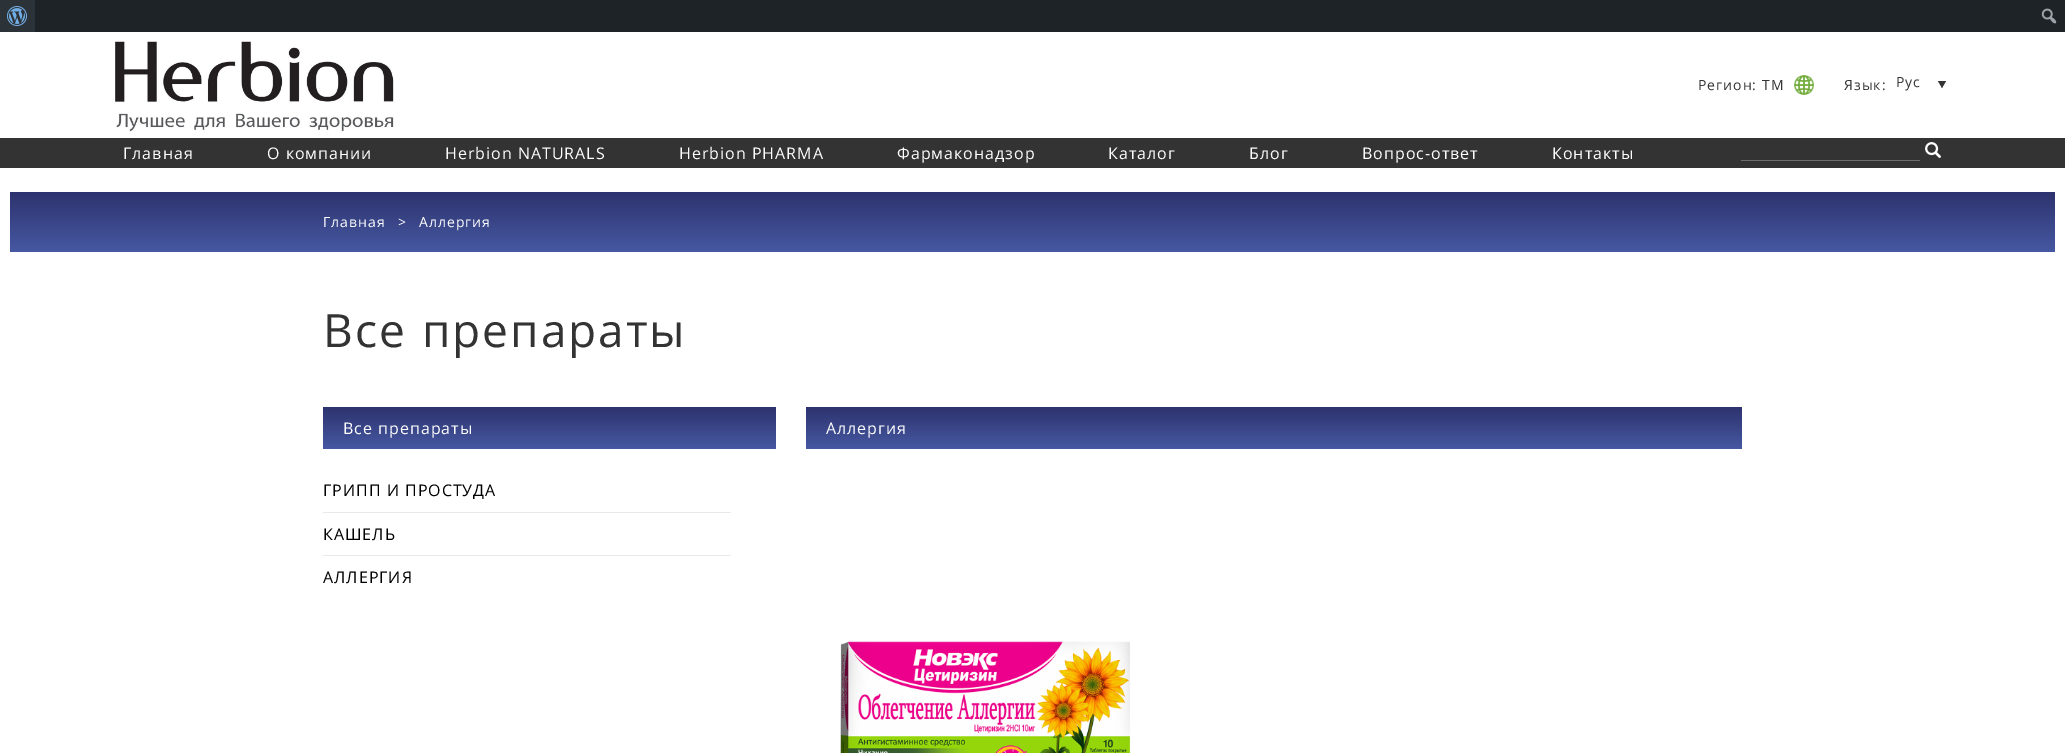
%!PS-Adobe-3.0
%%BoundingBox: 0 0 2065 753
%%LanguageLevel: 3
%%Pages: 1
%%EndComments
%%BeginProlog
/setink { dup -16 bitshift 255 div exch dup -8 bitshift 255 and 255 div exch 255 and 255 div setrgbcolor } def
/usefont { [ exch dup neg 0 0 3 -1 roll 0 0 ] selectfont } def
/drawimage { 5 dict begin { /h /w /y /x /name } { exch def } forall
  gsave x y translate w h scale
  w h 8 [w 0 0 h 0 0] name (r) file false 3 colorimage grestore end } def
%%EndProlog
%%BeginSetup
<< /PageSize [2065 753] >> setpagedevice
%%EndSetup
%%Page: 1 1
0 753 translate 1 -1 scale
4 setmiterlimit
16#FFFFFF setink
0 0 2065 753 rectfill
16#1D2327 setink
35 0 2030 32 rectfill
16#2C3338 setink
0 0 35 32 rectfill
(img1.raw) 7 6 20 20 drawimage
(img2.raw) 2041 8 16 16 drawimage
(img3.raw) 115 41 279 91 drawimage
/OpenSans-Regular 14 usefont
16#333333 setink
1698 90 moveto 1 0 (Регион: TM) ashow
(img4.raw) 1794 75 20 20 drawimage
1844 90 moveto 1 0 (Язык:) ashow
1896 87 moveto 1 0 (Рус) ashow
1938 81 moveto 1946 81 lineto 1942 88 lineto closepath fill
0 138 2065 30 rectfill
/OpenSans-Regular 16 usefont
16#FFFFFF setink
123 159 moveto 1 0 (Главная) ashow
267 159 moveto 1 0 (О компании) ashow
445 159 moveto 1 0 (Herbion NATURALS) ashow
679 159 moveto 1 0 (Herbion PHARMA) ashow
897 159 moveto 1 0 (Фармаконадзор) ashow
1108 159 moveto 1 0 (Каталог) ashow
1249 159 moveto 1 0 (Блог) ashow
1362 159 moveto 1 0 (Вопрос-ответ) ashow
1552 159 moveto 1 0 (Контакты) ashow
(img5.raw) 1925 142 16 16 drawimage
16#6D6D6D setink
1741 160 179 1 rectfill
gsave 10 192 moveto 2055 192 lineto 2055 252 lineto 10 252 lineto closepath clip newpath
<< /ShadingType 2 /ColorSpace /DeviceRGB /Coords [1033 192 1033 252] /Extend [true true] /Function << /FunctionType 2 /Domain [0 1] /C0 [0.176 0.2 0.431] /C1 [0.275 0.345 0.635] /N 1 >> >> shfill grestore
/OpenSans-Regular 14 usefont
16#FFFFFF setink
323 227 moveto 1 0 (Главная) ashow
398 227 moveto 1 0 (>) ashow
419 227 moveto 1 0 (Аллергия) ashow
/OpenSans-Regular 46 usefont
16#333333 setink
323 347 moveto 1 0 32 2 0 (Все препараты) awidthshow
gsave 323 407 moveto 776 407 lineto 776 449 lineto 323 449 lineto closepath clip newpath
<< /ShadingType 2 /ColorSpace /DeviceRGB /Coords [550 407 550 449] /Extend [true true] /Function << /FunctionType 2 /Domain [0 1] /C0 [0.176 0.2 0.431] /C1 [0.275 0.345 0.635] /N 1 >> >> shfill grestore
/OpenSans-Regular 16 usefont
16#FFFFFF setink
343 434 moveto 1 0 (Все препараты) ashow
16#E9E9E9 setink
323 512 408 1 rectfill
16#000000 setink
323 496 moveto 1 0 (ГРИПП И ПРОСТУДА) ashow
16#E9E9E9 setink
323 555 408 1 rectfill
16#000000 setink
323 540 moveto 1 0 (КАШЕЛЬ) ashow
323 583 moveto 1 0 (АЛЛЕРГИЯ) ashow
gsave 806 407 moveto 1742 407 lineto 1742 449 lineto 806 449 lineto closepath clip newpath
<< /ShadingType 2 /ColorSpace /DeviceRGB /Coords [1274 407 1274 449] /Extend [true true] /Function << /FunctionType 2 /Domain [0 1] /C0 [0.176 0.2 0.431] /C1 [0.275 0.345 0.635] /N 1 >> >> shfill grestore
16#FFFFFF setink
826 434 moveto 1 0 (Аллергия) ashow
(img6.raw) 840 641 291 112 drawimage
showpage
%%EOF
